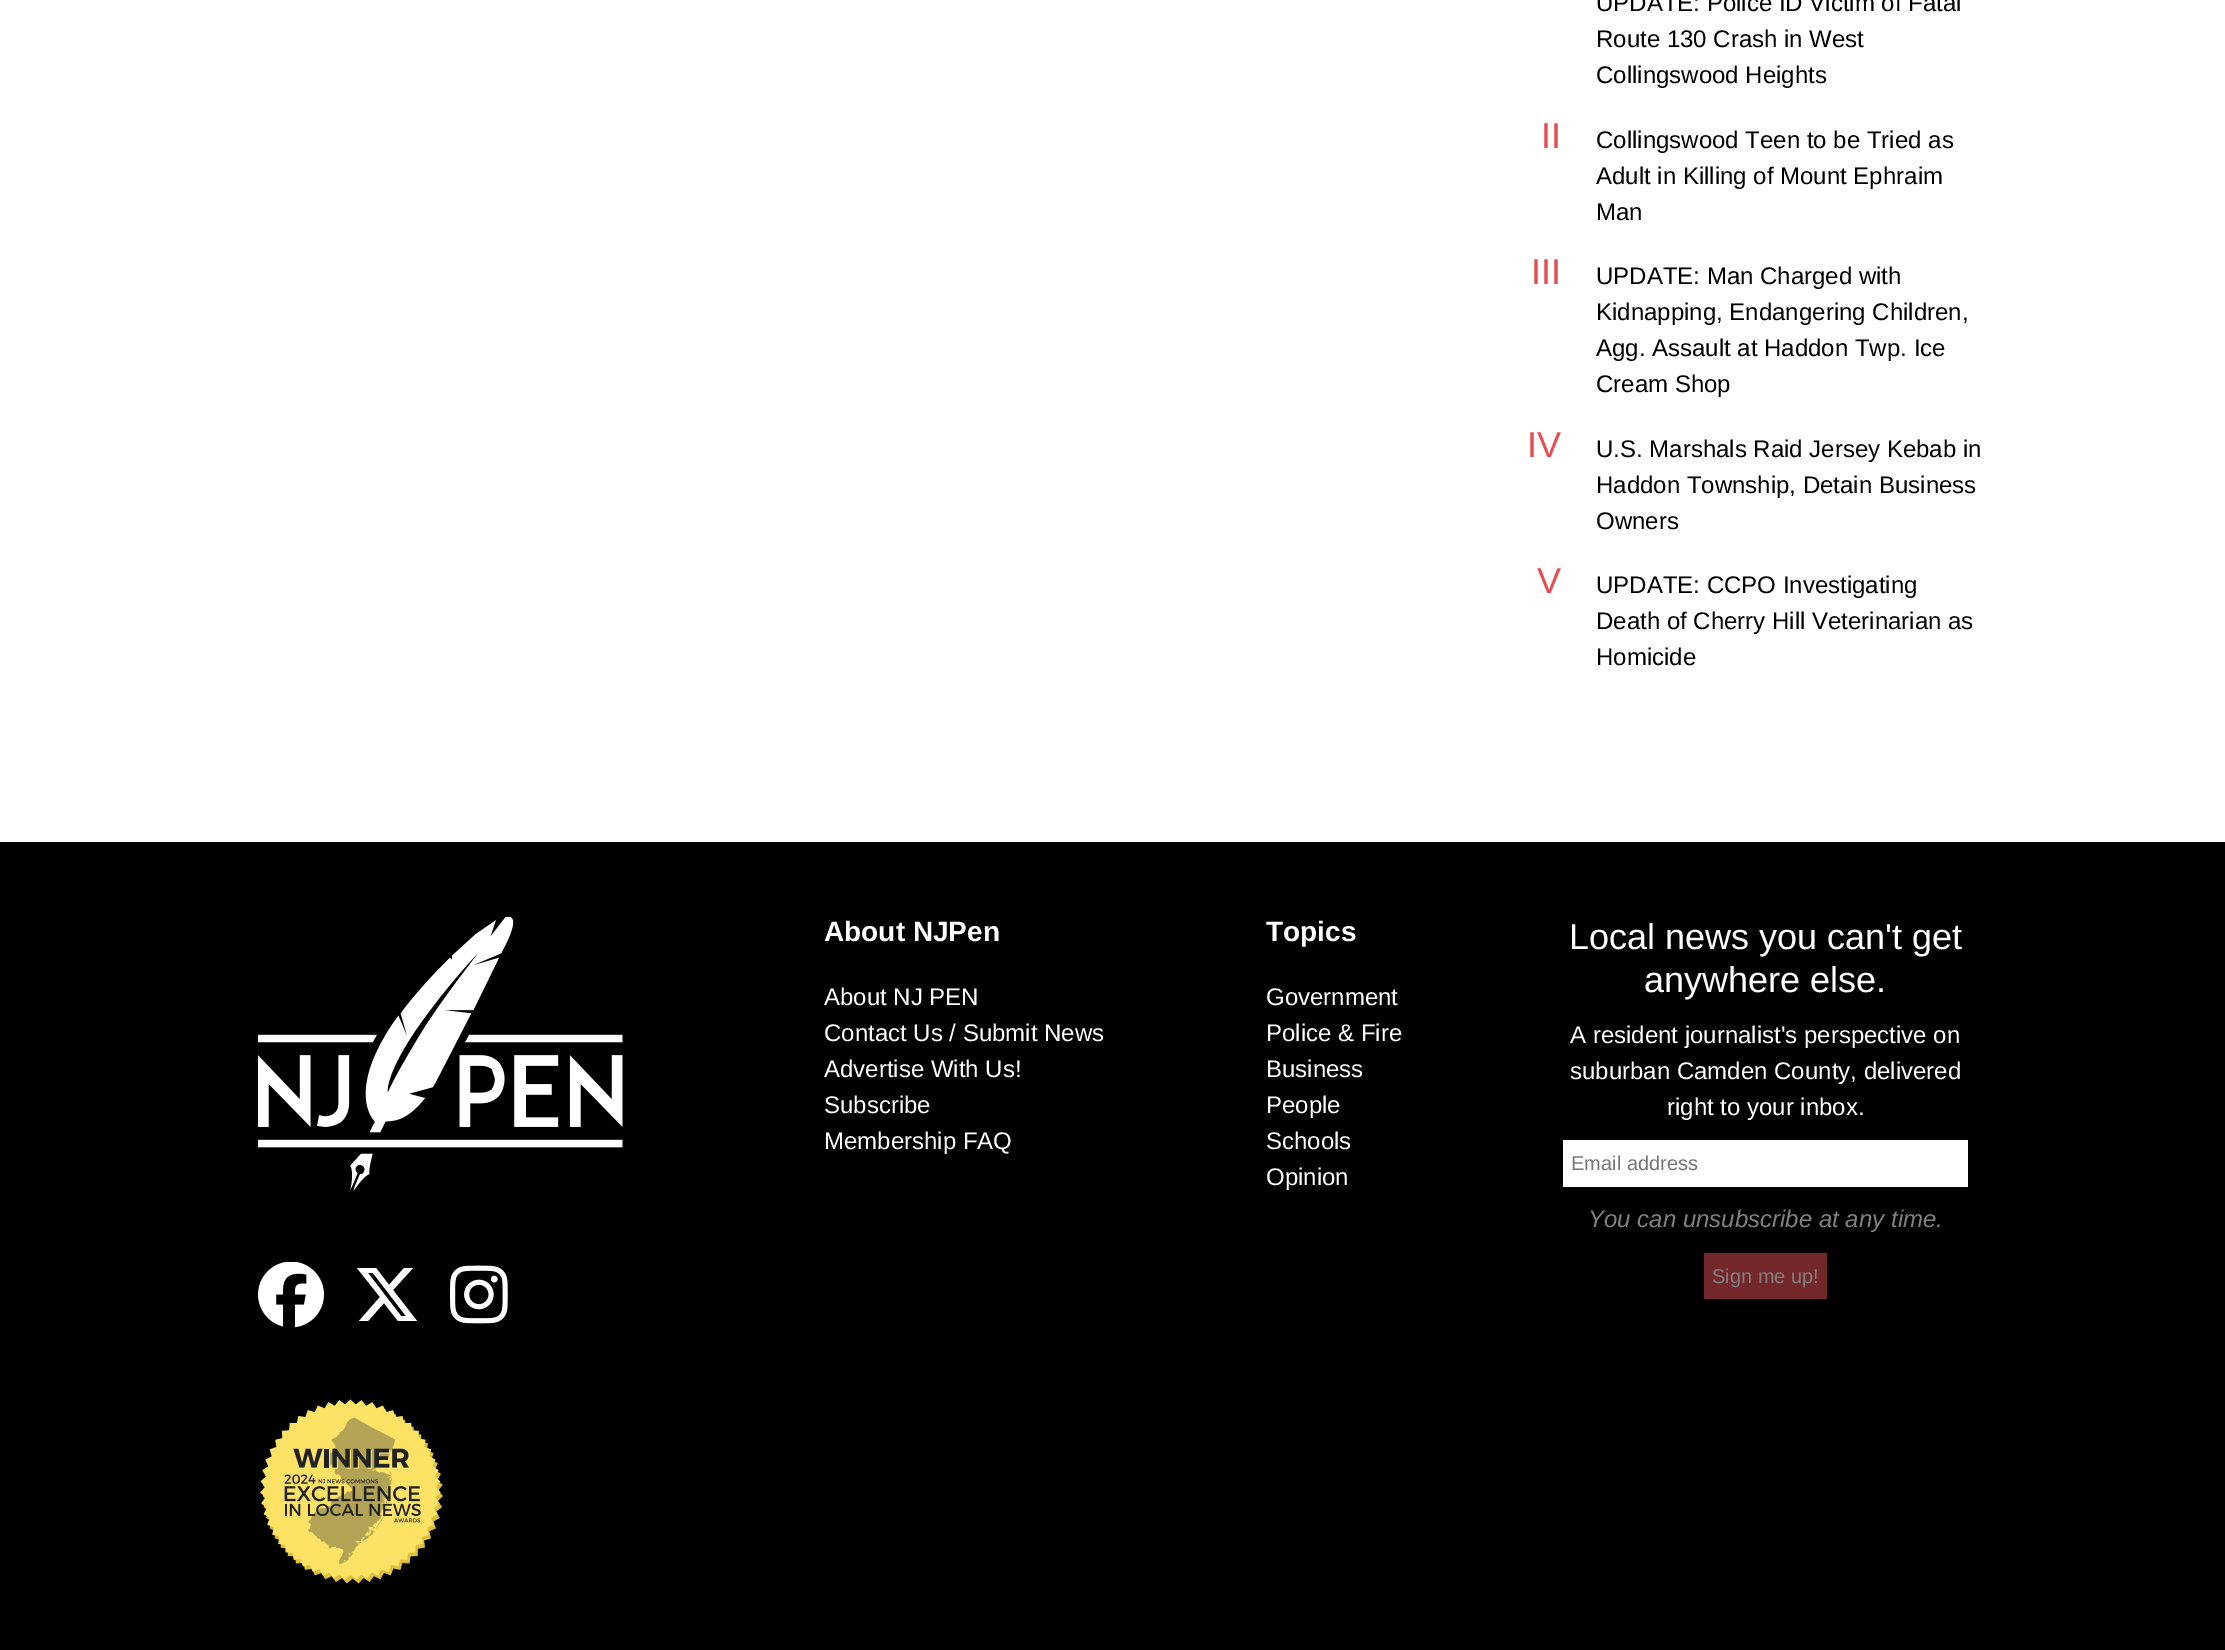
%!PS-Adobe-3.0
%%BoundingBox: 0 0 2225 1650
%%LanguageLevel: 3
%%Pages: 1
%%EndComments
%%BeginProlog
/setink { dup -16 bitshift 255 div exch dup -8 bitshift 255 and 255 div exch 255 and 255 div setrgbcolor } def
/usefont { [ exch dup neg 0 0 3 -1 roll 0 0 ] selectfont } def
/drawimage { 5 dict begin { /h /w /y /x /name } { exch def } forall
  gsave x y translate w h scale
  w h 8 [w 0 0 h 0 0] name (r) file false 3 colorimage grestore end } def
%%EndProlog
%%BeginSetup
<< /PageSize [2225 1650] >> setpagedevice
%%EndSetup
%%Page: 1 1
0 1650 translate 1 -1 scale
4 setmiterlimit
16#FFFFFF setink
0 0 2225 1650 rectfill
/LiberationSans-Regular 24 usefont
16#000000 setink
[
    [(UPDATE: Police ID Victim of Fatal) 1596 11]
    [(Route 130 Crash in West) 1596 47]
    [(Collingswood Heights) 1596 83]
] { aload pop moveto show } forall
/LiberationSans-Regular 36 usefont
16#E54E53 setink
1541 148 moveto (II) show
/LiberationSans-Regular 24 usefont
16#000000 setink
[
    [(Collingswood Teen to be Tried as) 1596 148]
    [(Adult in Killing of Mount Ephraim) 1596 184]
    [(Man) 1596 220]
] { aload pop moveto show } forall
/LiberationSans-Regular 36 usefont
16#E54E53 setink
1531 284 moveto (III) show
/LiberationSans-Regular 24 usefont
16#000000 setink
[
    [(UPDATE: Man Charged with) 1596 284]
    [(Kidnapping, Endangering Children,) 1596 320]
    [(Agg. Assault at Haddon Twp. Ice) 1596 356]
    [(Cream Shop) 1596 392]
] { aload pop moveto show } forall
/LiberationSans-Regular 36 usefont
16#E54E53 setink
1527 457 moveto (IV) show
/LiberationSans-Regular 24 usefont
16#000000 setink
[
    [(U.S. Marshals Raid Jersey Kebab in) 1596 457]
    [(Haddon Township, Detain Business) 1596 493]
    [(Owners) 1596 529]
] { aload pop moveto show } forall
/LiberationSans-Regular 36 usefont
16#E54E53 setink
1537 593 moveto (V) show
/LiberationSans-Regular 24 usefont
16#000000 setink
[
    [(UPDATE: CCPO Investigating) 1596 593]
    [(Death of Cherry Hill Veterinarian as) 1596 629]
    [(Homicide) 1596 665]
] { aload pop moveto show } forall
0 842 2225 808 rectfill
(img1.raw) 258 917 365 274 drawimage
(img2.raw) 258 1262 66 66 drawimage
16#FFFFFF setink
404 1268 moveto 413 1268 lineto 393 1290 lineto 417 1321 lineto 398 1321 lineto 384 1303 lineto 368 1321 lineto 359 1321 lineto 380 1297 lineto 357 1268 lineto 376 1268 lineto 389 1285 lineto closepath 401 1316 moveto 406 1316 lineto 373 1273 lineto 368 1273 lineto closepath fill
(img3.raw) 450 1265 58 59 drawimage
(img4.raw) 260 1399 183 185 drawimage
/LiberationSans-Bold 28 usefont
824 941 moveto (About NJPen) show
/LiberationSans-Regular 24 usefont
[
    [(About NJ PEN) 824 1005]
    [(Contact Us / Submit News) 824 1041]
    [(Advertise With Us!) 824 1077]
    [(Subscribe) 824 1113]
    [(Membership FAQ) 824 1149]
] { aload pop moveto show } forall
/LiberationSans-Bold 28 usefont
1266 941 moveto (Topics) show
/LiberationSans-Regular 24 usefont
[
    [(Government) 1266 1005]
    [(Police & Fire) 1266 1041]
    [(Business) 1266 1077]
    [(People) 1266 1113]
    [(Schools) 1266 1149]
    [(Opinion) 1266 1185]
] { aload pop moveto show } forall
/LiberationSans-Regular 36 usefont
1569 949 moveto (Local news you can't get) show
1644 992 moveto (anywhere else.) show
/LiberationSans-Regular 24 usefont
[
    [(A resident journalist's perspective on) 1570 1043]
    [(suburban Camden County, delivered) 1570 1079]
    [(right to your inbox.) 1667 1115]
] { aload pop moveto show } forall
1563 1140 405 47 rectfill
/LiberationSans-Regular 20 usefont
16#767676 setink
1571 1170 moveto (Email address) show
/LiberationSans-Italic 24 usefont
16#808080 setink
1588 1227 moveto (You can unsubscribe at any time.) show
16#73272A setink
1704 1253 123 46 rectfill
/LiberationSans-Regular 20 usefont
16#808080 setink
1712 1283 moveto (Sign me up!) show
showpage
%%EOF
